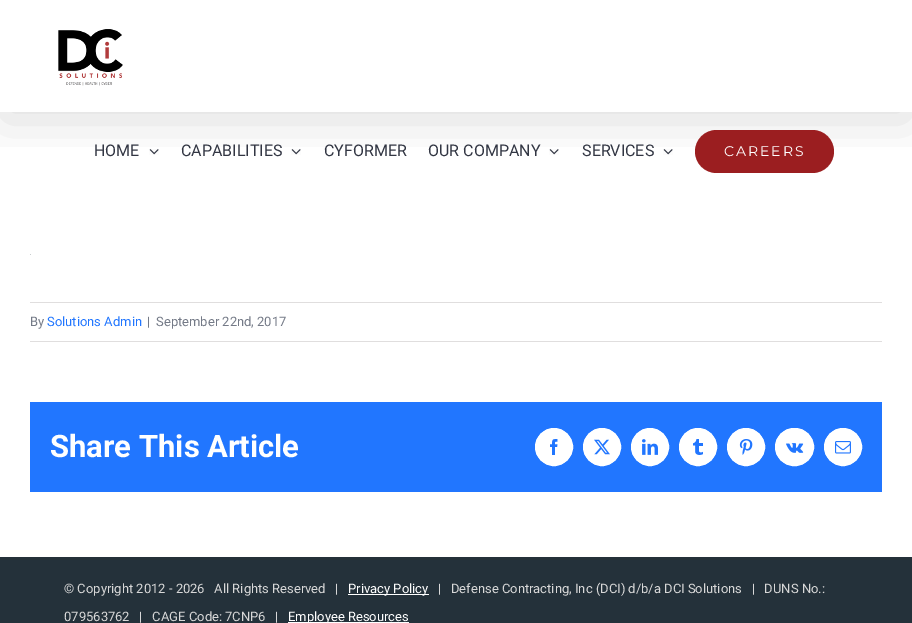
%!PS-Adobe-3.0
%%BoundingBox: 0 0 912 623
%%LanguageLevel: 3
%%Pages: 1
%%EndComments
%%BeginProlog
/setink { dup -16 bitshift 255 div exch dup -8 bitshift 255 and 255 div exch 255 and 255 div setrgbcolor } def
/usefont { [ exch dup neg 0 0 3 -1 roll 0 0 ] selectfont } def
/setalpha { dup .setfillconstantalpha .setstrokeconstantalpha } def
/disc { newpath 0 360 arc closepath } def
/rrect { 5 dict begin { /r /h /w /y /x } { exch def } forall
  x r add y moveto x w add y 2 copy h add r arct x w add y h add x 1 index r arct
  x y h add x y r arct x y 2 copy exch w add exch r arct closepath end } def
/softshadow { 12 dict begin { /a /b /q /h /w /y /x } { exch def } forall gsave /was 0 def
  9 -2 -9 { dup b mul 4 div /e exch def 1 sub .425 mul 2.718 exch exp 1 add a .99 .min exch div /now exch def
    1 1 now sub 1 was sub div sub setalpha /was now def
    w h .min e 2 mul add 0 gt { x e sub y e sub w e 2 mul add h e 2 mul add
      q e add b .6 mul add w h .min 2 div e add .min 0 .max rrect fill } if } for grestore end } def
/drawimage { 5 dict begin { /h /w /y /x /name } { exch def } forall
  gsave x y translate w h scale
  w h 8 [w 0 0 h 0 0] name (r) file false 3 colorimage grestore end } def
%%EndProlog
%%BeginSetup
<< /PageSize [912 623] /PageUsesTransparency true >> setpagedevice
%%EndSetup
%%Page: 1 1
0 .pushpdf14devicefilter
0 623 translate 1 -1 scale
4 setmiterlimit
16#FFFFFF setink
0 0 912 623 rectfill
gsave
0 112 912 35 rectclip
16#000000 setink
2 12 908 108 0 25 0.14 softshadow
grestore
(img1.raw) 58 29 65 57 drawimage
/Roboto-Regular 16 usefont
16#323643 setink
94 156 moveto (HOME) show
(img2.raw) 149 149 10 6 drawimage
181 156 moveto (CAPABILITIES) show
(img2.raw) 291 149 10 6 drawimage
324 156 moveto (CYFORMER) show
428 156 moveto (OUR COMPANY) show
(img2.raw) 549 149 10 6 drawimage
582 156 moveto (SERVICES) show
(img2.raw) 663 149 10 6 drawimage
16#9B1E20 setink
695 130 139 43 21.5 rrect fill
/Montserrat-Thin 14 usefont
16#FFFFFF setink
724 156 moveto 2 0 (CAREERS) ashow
[
    [30 254 1 1 16#C9CECF]
    [30 302 852 1 16#E0DEDE]
    [30 341 852 1 16#E0DEDE]
] { aload pop setink rectfill } forall
/Roboto-Regular 13 usefont
16#747A87 setink
30 326 moveto (By) show
16#2176FF setink
47 326 moveto (Solutions Admin) show
16#747A87 setink
147 326 moveto (|) show
156 326 moveto (September 22nd, 2017) show
16#2176FF setink
30 402 852 90 rectfill
/Roboto-Bold 31 usefont
16#FFFFFF setink
50 457 moveto (Share This Article) show
554 447 18.5 disc gsave fill grestore
stroke
(img3.raw) 550 439 8 16 drawimage
602 447 18.5 disc gsave fill grestore
stroke
(img4.raw) 594 439 16 16 drawimage
650 447 18.5 disc gsave fill grestore
stroke
(img5.raw) 642 439 16 16 drawimage
698 447 18.5 disc gsave fill grestore
stroke
(img6.raw) 693 439 10 16 drawimage
746 447 18.5 disc gsave fill grestore
stroke
(img7.raw) 739 439 14 16 drawimage
775.5 428.5 38 37 18.5 rrect gsave fill grestore
stroke
(img8.raw) 786 443 18 10 drawimage
843 447 18.5 disc gsave fill grestore
stroke
(img9.raw) 835 441 16 13 drawimage
16#24313A setink
0 557 912 66 rectfill
/Roboto-Regular 13 usefont
16#D8D8D8 setink
64 593 moveto (© Copyright 2012 - 2026   All Rights Reserved   |) show
16#FFFFFF setink
348 594 81 1 rectfill
348 593 moveto (Privacy Policy) show
16#D8D8D8 setink
438 593 moveto (|   Defense Contracting, Inc \(DCI\) d/b/a DCI Solutions   |   DUNS No.:) show
64 621 moveto (079563762   |   CAGE Code: 7CNP6   |) show
16#FFFFFF setink
288 622 121 1 rectfill
288 621 moveto (Employee Resources) show
.poppdf14devicefilter showpage
%%EOF
